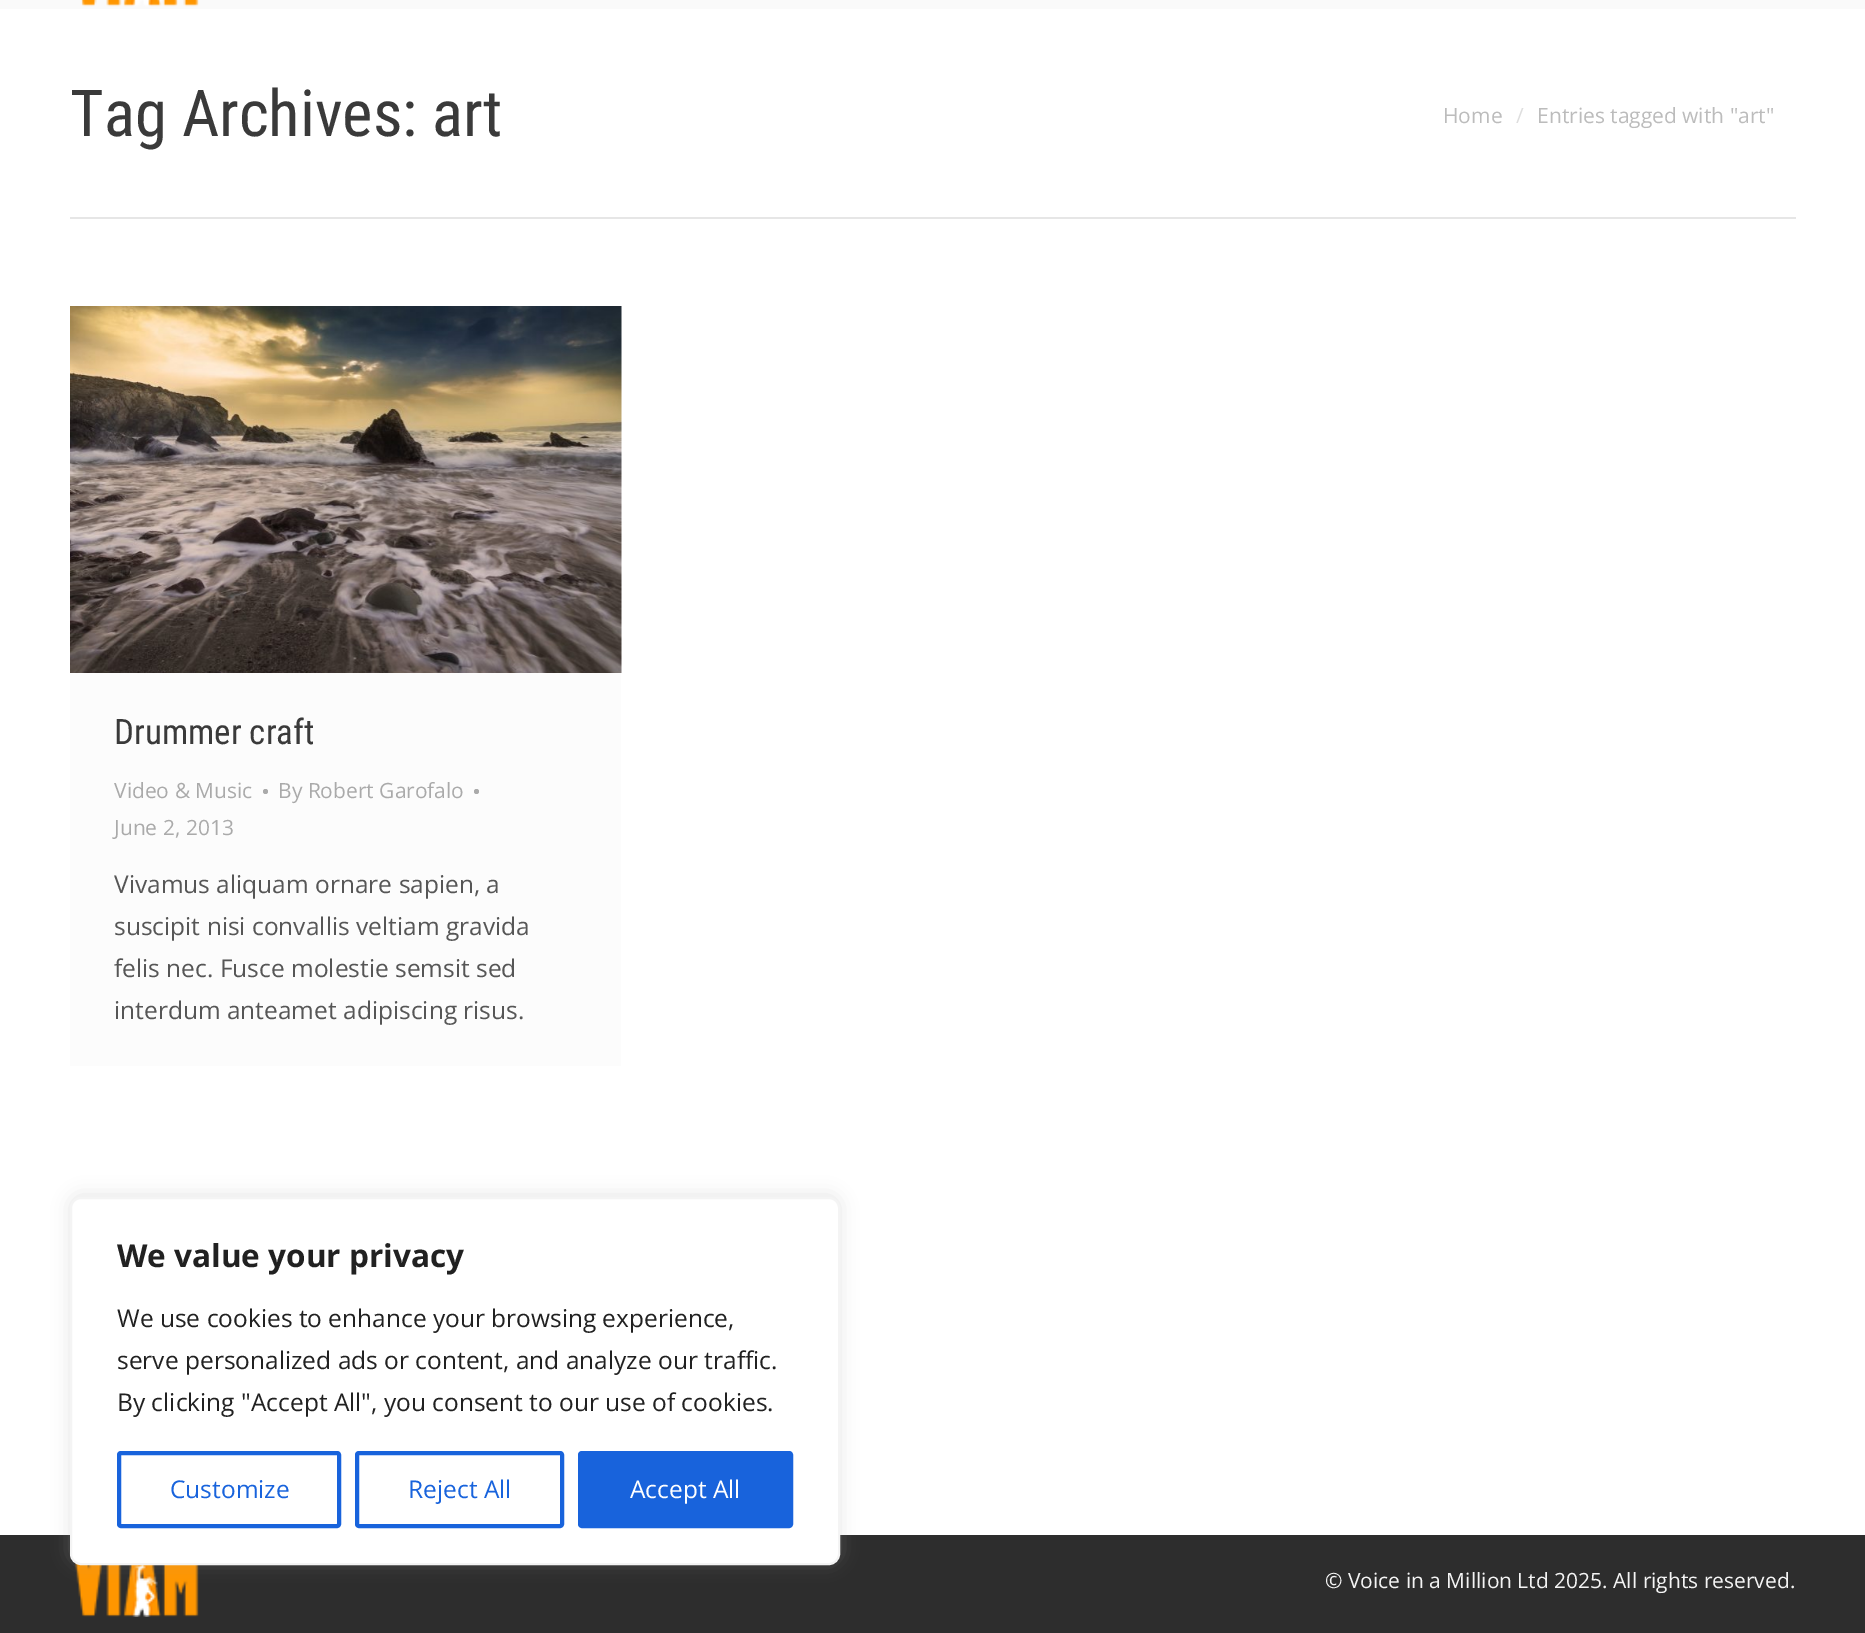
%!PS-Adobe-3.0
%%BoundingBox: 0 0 1865 1633
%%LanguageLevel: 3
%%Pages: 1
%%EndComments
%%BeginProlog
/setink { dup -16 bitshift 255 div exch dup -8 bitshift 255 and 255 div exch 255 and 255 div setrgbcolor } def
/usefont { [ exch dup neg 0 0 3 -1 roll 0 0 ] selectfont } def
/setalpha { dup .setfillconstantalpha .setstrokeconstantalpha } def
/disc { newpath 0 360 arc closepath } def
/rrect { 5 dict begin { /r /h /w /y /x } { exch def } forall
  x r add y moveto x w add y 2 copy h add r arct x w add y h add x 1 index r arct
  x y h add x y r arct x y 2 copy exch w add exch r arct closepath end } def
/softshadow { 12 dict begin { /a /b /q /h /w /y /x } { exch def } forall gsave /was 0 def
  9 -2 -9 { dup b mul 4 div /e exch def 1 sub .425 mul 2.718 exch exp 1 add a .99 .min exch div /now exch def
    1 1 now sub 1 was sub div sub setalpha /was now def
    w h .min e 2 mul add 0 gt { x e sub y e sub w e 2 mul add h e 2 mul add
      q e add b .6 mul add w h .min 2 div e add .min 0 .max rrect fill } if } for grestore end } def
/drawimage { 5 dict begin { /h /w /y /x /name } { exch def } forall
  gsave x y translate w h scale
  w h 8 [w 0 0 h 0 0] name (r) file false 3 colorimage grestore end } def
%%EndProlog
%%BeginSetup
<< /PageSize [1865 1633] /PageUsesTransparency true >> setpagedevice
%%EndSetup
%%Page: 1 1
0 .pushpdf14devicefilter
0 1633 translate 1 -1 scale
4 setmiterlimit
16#2D2D2D setink
0 0 1865 1633 rectfill
16#FAFAFA setink
0 0 1865 9 rectfill
(img1.raw) 81 0 118 7 drawimage
16#FFFFFF setink
0 9 1865 1526 rectfill
/RobotoCondensed-Regular 64.75 usefont
16#3A3A3A setink
70 136 moveto (Tag Archives: art) show
/OpenSans-Regular 21 usefont
16#BCBCBC setink
1443 123 moveto (Home) show
16#DEDEDE setink
1516 123 moveto (/) show
16#BCBCBC setink
1537 123 moveto (Entries tagged with "art") show
16#E6E6E6 setink
70 217 1726 2 rectfill
16#FCFCFC setink
70 673 551 393 rectfill
(img2.raw) 70 306 552 367 drawimage
/RobotoCondensed-Regular 35 usefont
16#3A3A3A setink
114 744 moveto (Drummer craft) show
/OpenSans-Regular 21 usefont
16#AAAAAA setink
114 798 moveto (Video & Music) show
265.5 791.5 2.5 disc fill
278 798 moveto (By Robert Garofalo) show
476.5 791.5 2.5 disc fill
114 835 moveto (June 2, 2013) show
/OpenSans-Regular 24.5 usefont
16#565656 setink
[
    [(Vivamus aliquam ornare sapien, a) 114 893]
    [(suscipit nisi convallis veltiam gravida) 114 935]
    [(felis nec. Fusce molestie semsit sed) 114 977]
    [(interdum anteamet adipiscing risus.) 114 1019]
] { aload pop moveto show } forall
(img3.raw) 74 1562 125 55 drawimage
/OpenSans-Regular 21 usefont
16#F4F4F4 setink
1325 1588 moveto (© Voice in a Million Ltd 2025. All rights reserved.) show
16#ACABAB setink
70 1195 770 368 11 9 0.3 softshadow
16#FFFFFF setink
71 1198 768 366 10 rrect gsave fill grestore
16#F4F4F4 setink
2 setlinewidth
stroke
/OpenSans-Bold 31.5 usefont
16#212121 setink
117 1267 moveto (We value your privacy) show
/OpenSans-Regular 24.5 usefont
[
    [(We use cookies to enhance your browsing experience,) 117 1327]
    [(serve personalized ads or content, and analyze our traffic.) 117 1369]
    [(By clicking "Accept All", you consent to our use of cookies.) 117 1411]
] { aload pop moveto show } forall
16#1863DC setink
4 setlinewidth
119 1453 220 73 2 rrect stroke
170 1498 moveto (Customize) show
357 1453 205 73 2 rrect stroke
408 1498 moveto (Reject All) show
580 1453 211 73 2 rrect gsave fill grestore
stroke
16#FFFFFF setink
630 1498 moveto (Accept All) show
.poppdf14devicefilter showpage
%%EOF
